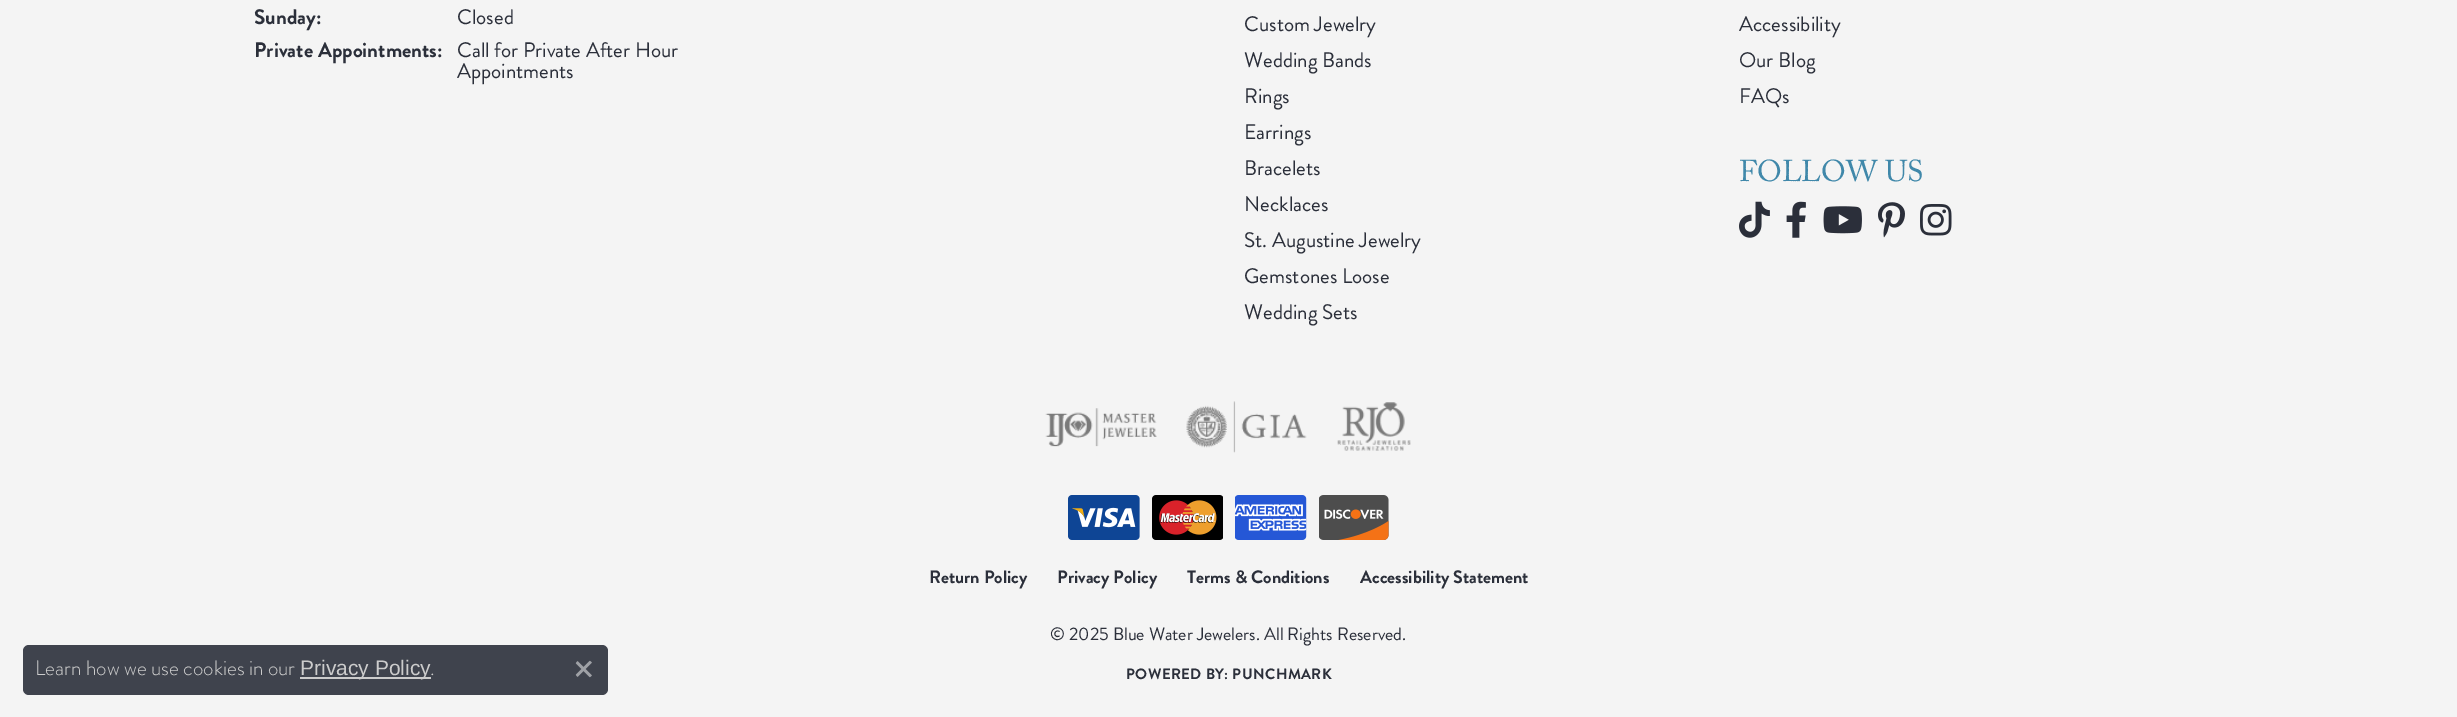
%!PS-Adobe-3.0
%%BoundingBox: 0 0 2457 717
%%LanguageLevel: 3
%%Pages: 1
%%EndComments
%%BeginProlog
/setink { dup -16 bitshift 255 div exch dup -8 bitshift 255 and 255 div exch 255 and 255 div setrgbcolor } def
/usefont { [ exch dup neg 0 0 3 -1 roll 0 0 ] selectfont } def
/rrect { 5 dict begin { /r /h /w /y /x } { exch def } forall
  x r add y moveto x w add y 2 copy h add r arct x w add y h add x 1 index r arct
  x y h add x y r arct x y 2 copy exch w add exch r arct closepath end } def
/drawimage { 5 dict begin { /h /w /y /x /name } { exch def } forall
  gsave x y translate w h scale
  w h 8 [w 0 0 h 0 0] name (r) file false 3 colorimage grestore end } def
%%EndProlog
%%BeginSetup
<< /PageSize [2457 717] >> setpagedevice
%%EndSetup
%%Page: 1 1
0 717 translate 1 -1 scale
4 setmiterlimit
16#F4F4F4 setink
0 0 2457 717 rectfill
16#3F434D setink
23 645 585 50 6 rrect fill
/BrandonGrotesque-Light 21 usefont
16#CCCCCC setink
35 675 moveto (Learn how we use cookies in our) show
300 677 131 2 rectfill
/LiberationSans-Regular 21 usefont
300 675 moveto (Privacy Policy) show
/BrandonGrotesque-Light 21 usefont
430 675 moveto (.) show
(img1.raw) 575 660 17 18 drawimage
/BrandonGrotesque-Bold 21 usefont
16#2B2F3A setink
254 24 moveto (Sunday:) show
/BrandonGrotesque-Regular 21 usefont
457 24 moveto (Closed) show
/BrandonGrotesque-Bold 21 usefont
254 57 moveto (Private Appointments:) show
/BrandonGrotesque-Regular 21 usefont
[
    [(Call for Private After Hour) 457 57]
    [(Appointments) 457 78]
    [(Custom Jewelry) 1244 31]
    [(Wedding Bands) 1244 67]
    [(Rings) 1244 103]
    [(Earrings) 1244 139]
    [(Bracelets) 1244 175]
    [(Necklaces) 1244 211]
    [(St. Augustine Jewelry) 1244 247]
    [(Gemstones Loose) 1244 283]
    [(Wedding Sets) 1244 319]
    [(Accessibility) 1739 31]
    [(Our Blog) 1739 67]
    [(FAQs) 1739 103]
] { aload pop moveto show } forall
/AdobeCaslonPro-Regular 30 usefont
16#4088AA setink
1739 181 moveto (FOLLOW US) show
(img2.raw) 1739 201 31 37 drawimage
(img3.raw) 1786 201 20 37 drawimage
(img4.raw) 1823 206 39 28 drawimage
(img5.raw) 1878 202 27 36 drawimage
(img6.raw) 1920 204 32 32 drawimage
(img7.raw) 1045 408 112 39 drawimage
(img8.raw) 1186 401 121 52 drawimage
(img9.raw) 1337 402 74 49 drawimage
(img10.raw) 1068 495 72 45 drawimage
(img11.raw) 1152 495 71 45 drawimage
(img12.raw) 1235 495 72 45 drawimage
(img13.raw) 1319 495 70 45 drawimage
/BrandonGrotesque-Bold 18 usefont
16#2B2F3A setink
[
    [(Return Policy) 929 583]
    [(Privacy Policy) 1057 583]
    [(Terms & Conditions) 1187 583]
    [(Accessibility Statement) 1360 583]
] { aload pop moveto show } forall
/BrandonGrotesque-Regular 18 usefont
1050 640 moveto (© 2025 Blue Water Jewelers. All Rights Reserved.) show
/BrandonGrotesque-Bold 15 usefont
1126 679 moveto 0.4 0 (POWERED BY: PUNCHMARK) ashow
showpage
%%EOF
